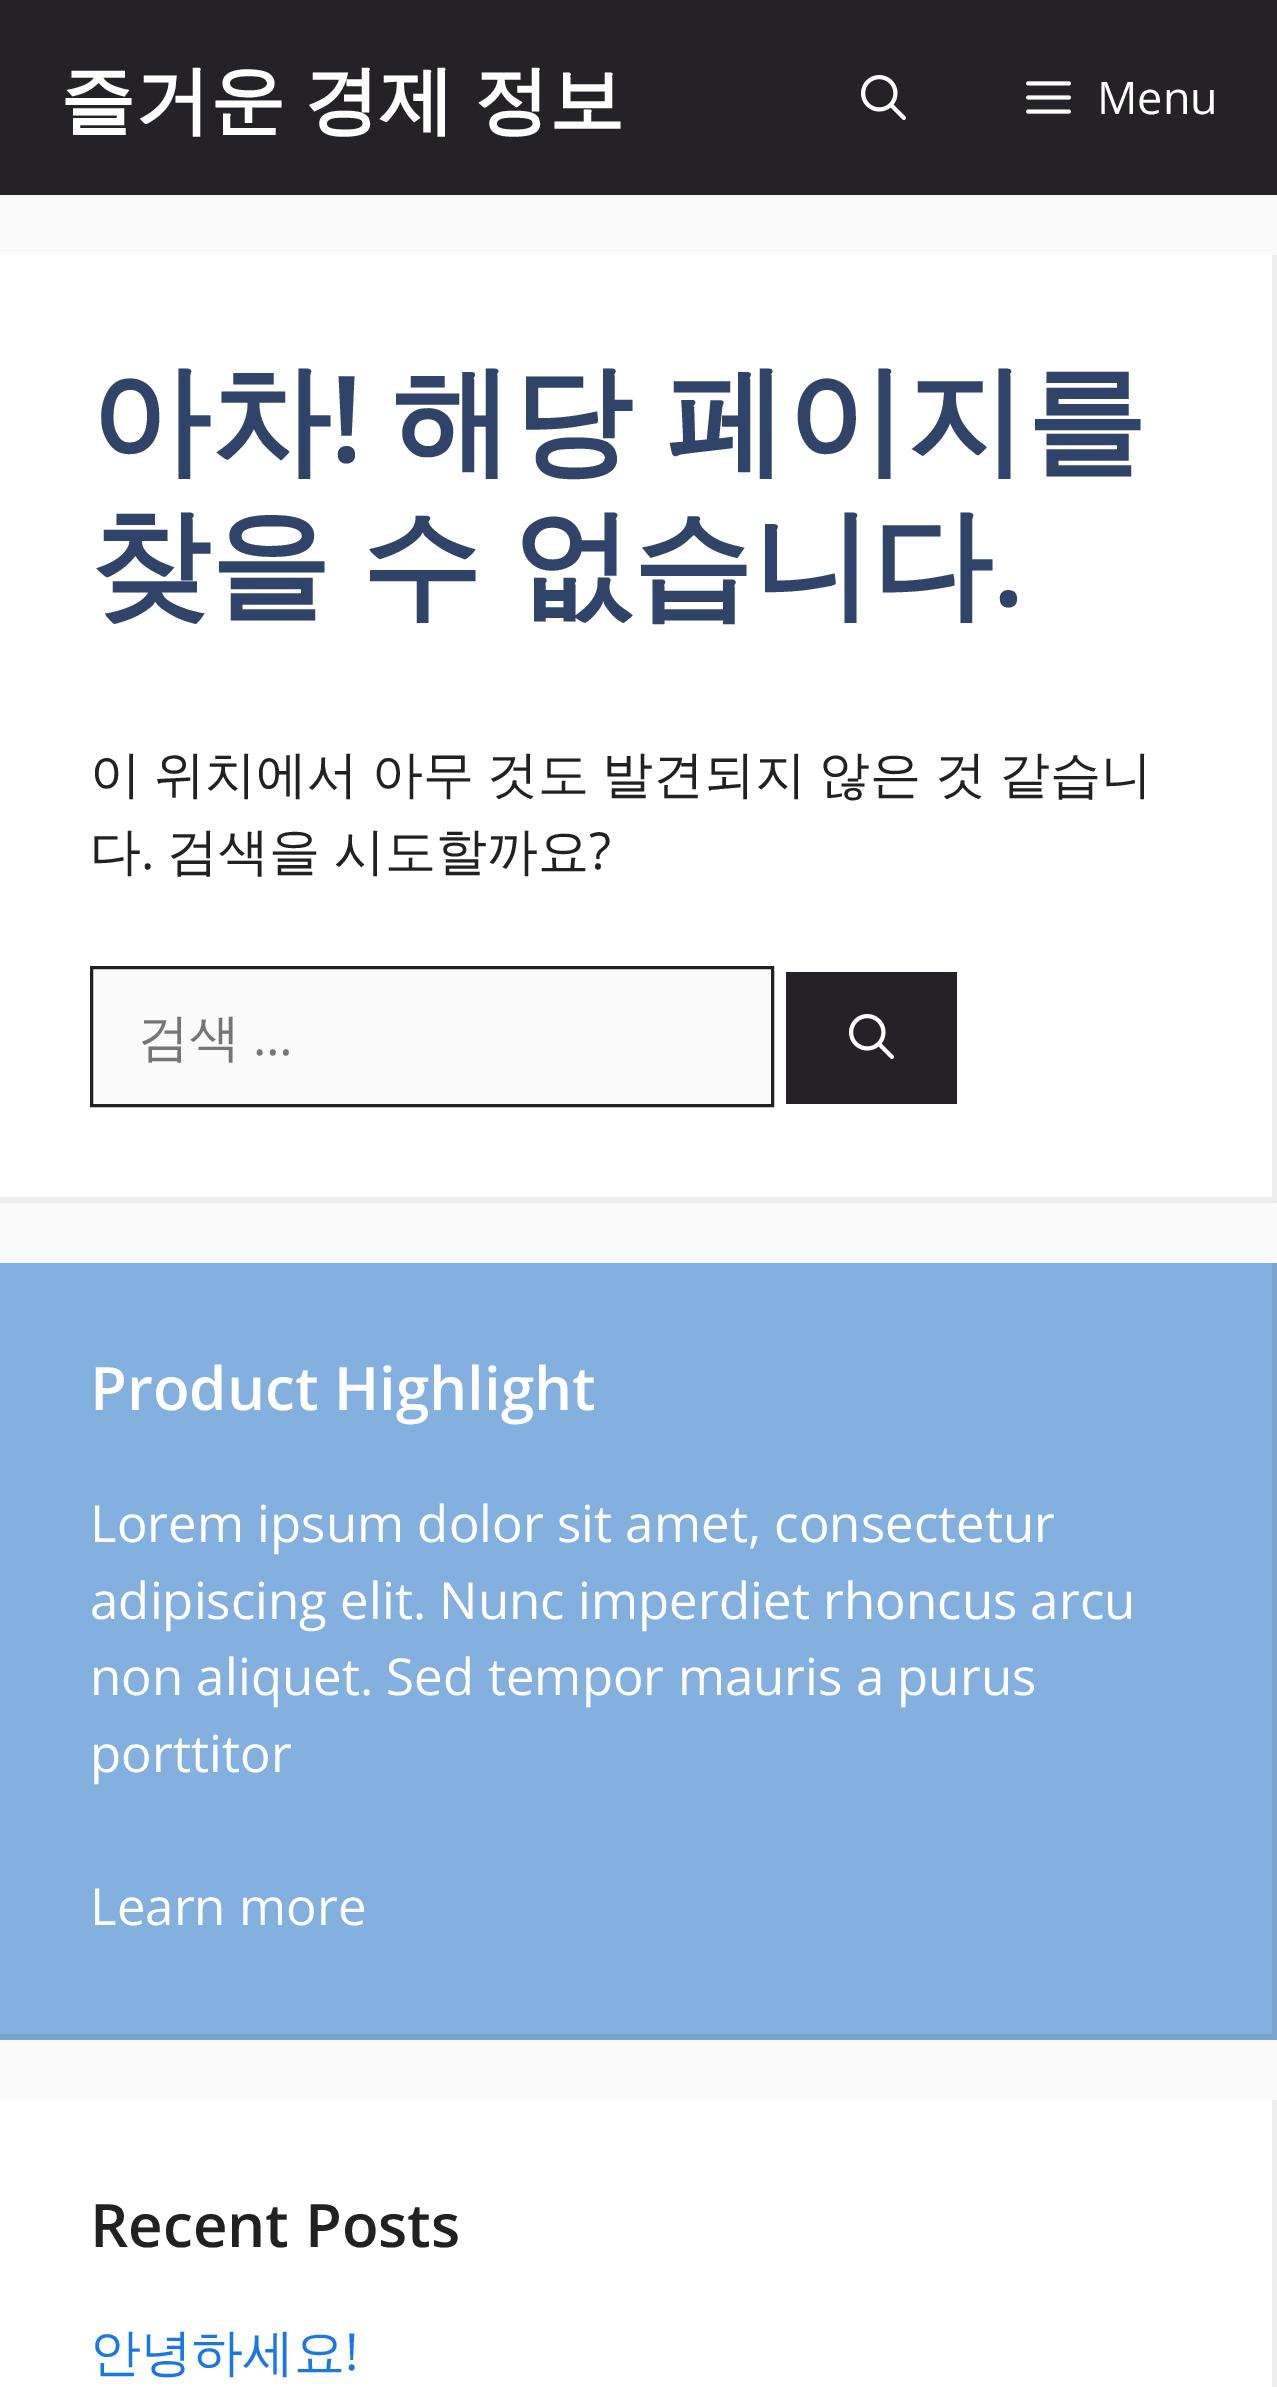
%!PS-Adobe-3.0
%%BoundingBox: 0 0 1277 2387
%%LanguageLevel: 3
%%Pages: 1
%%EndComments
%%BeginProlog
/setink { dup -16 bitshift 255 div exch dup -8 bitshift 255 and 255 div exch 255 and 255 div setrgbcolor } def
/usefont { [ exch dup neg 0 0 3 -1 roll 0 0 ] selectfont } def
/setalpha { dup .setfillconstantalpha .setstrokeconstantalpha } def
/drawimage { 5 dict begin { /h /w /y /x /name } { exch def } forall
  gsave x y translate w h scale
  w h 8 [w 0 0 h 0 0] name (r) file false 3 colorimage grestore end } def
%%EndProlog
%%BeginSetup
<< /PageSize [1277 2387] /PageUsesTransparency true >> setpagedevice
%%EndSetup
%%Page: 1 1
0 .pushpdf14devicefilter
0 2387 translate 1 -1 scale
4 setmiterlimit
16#FAFAFA setink
0 0 1277 2387 rectfill
16#242226 setink
0 0 1277 195 rectfill
/WenQuanYiZenHei-Bold 75 usefont
16#FFFFFF setink
60 126 moveto -3 0 32 (즐거운 경제 정보) widthshow
(img1.raw) 861 75 45 45 drawimage
(img2.raw) 1026 81 45 33 drawimage
/OpenSans-Regular 45 usefont
1097 114 moveto (Menu) show
0 255 1277 948 rectfill
16#EDEDED setink
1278 255 moveto 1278 1203 lineto 1272 1197 lineto 1272 255 lineto closepath fill
0.07 setalpha
16#000000 setink
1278 1203 moveto 0 1203 lineto 0 1197 lineto 1272 1197 lineto closepath fill
/WenQuanYiZenHei-Bold 120 usefont
1 setalpha
16#2F4468 setink
90 462 moveto (아차) show
/OpenSans-SemiBold 120 usefont
330 462 moveto (!) show
/WenQuanYiZenHei-Bold 120 usefont
392 462 moveto -2 0 32 (해당 페이지를) widthshow
90 606 moveto -5 0 32 (찾을 수 없습니다) widthshow
/OpenSans-SemiBold 120 usefont
992 606 moveto (.) show
/WenQuanYiZenHei-Medium 51 usefont
16#212121 setink
90 792 moveto -2 0 32 (이 위치에서 아무 것도 발견되지 않은 것 같습니) widthshow
90 869 moveto (다) show
/OpenSans-Regular 51 usefont
141 869 moveto (.) show
/WenQuanYiZenHei-Medium 51 usefont
167 869 moveto -1 0 32 (검색을 시도할까요) widthshow
/OpenSans-Regular 51 usefont
589 869 moveto (?) show
16#FAFAFA setink
91.5 967.5 moveto 772.5 967.5 lineto 772.5 1105.5 lineto 91.5 1105.5 lineto closepath gsave fill grestore
16#212121 setink
3 setlinewidth
stroke
/WenQuanYiZenHei-Medium 51 usefont
16#757575 setink
138 1055 moveto (검색) show
/OpenSans-Regular 51 usefont
253 1055 moveto (…) show
16#242226 setink
786 972 171 132 rectfill
(img1.raw) 849 1014 45 45 drawimage
16#83B0DE setink
0 1263 1277 777 rectfill
16#7AA4CE setink
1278 1263 moveto 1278 2040 lineto 1272 2034 lineto 1272 1263 lineto closepath fill
0.07 setalpha
16#000000 setink
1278 2040 moveto 0 2040 lineto 0 2034 lineto 1272 2034 lineto closepath fill
/OpenSans-SemiBold 60 usefont
1 setalpha
16#FFFFFF setink
90 1410 moveto (Product Highlight) show
/OpenSans-Regular 51 usefont
[
    [(Lorem ipsum dolor sit amet, consectetur) 90 1542]
    [(adipiscing elit. Nunc imperdiet rhoncus arcu) 90 1619]
    [(non aliquet. Sed tempor mauris a purus) 90 1695]
    [(porttitor) 90 1772]
    [(Learn more) 90 1925]
] { aload pop moveto show } forall
0 2100 1272 287 rectfill
16#EDEDED setink
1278 2100 moveto 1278 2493 lineto 1272 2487 lineto 1272 2100 lineto closepath fill
/OpenSans-SemiBold 60 usefont
16#212121 setink
90 2247 moveto (Recent Posts) show
/WenQuanYiZenHei-Medium 51 usefont
16#1B78E2 setink
90 2370 moveto (안녕하세요) show
/OpenSans-Regular 51 usefont
345 2370 moveto (!) show
.poppdf14devicefilter showpage
%%EOF
